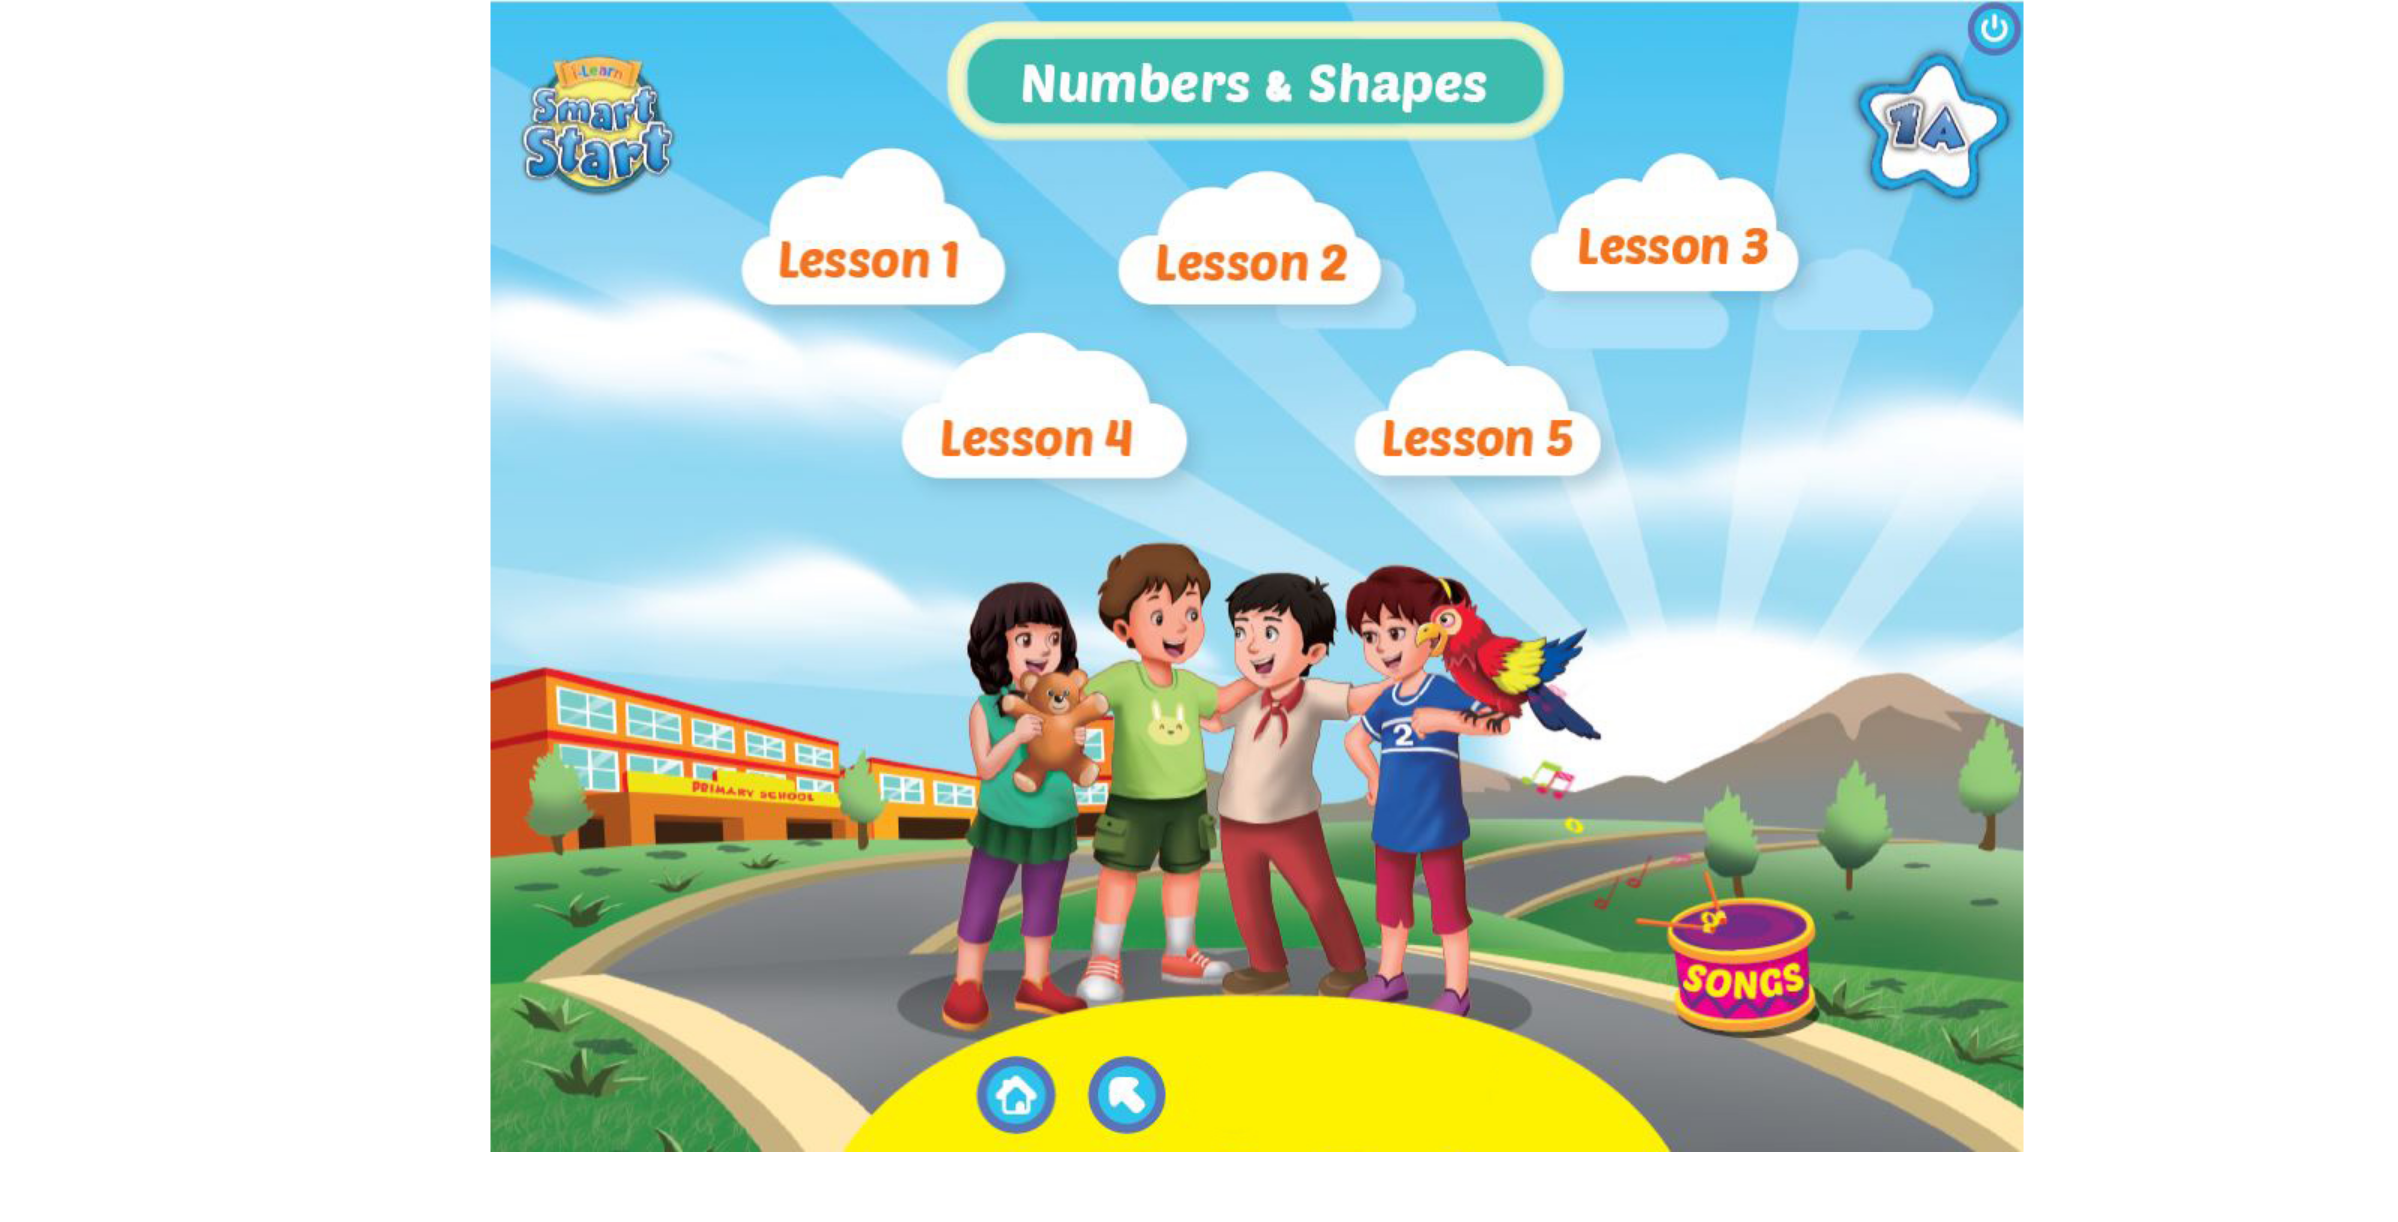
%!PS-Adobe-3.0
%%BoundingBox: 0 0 2398 1222
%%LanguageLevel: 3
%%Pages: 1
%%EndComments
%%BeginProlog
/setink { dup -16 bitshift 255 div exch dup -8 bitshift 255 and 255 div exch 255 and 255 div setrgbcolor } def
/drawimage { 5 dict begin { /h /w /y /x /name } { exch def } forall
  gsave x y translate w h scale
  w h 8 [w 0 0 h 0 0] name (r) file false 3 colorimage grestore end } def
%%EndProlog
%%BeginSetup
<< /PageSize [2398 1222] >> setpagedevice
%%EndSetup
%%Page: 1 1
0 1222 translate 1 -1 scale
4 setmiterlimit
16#FFFFFF setink
0 0 2398 1222 rectfill
(img1.raw) 490 0 1534 1152 drawimage
showpage
%%EOF
